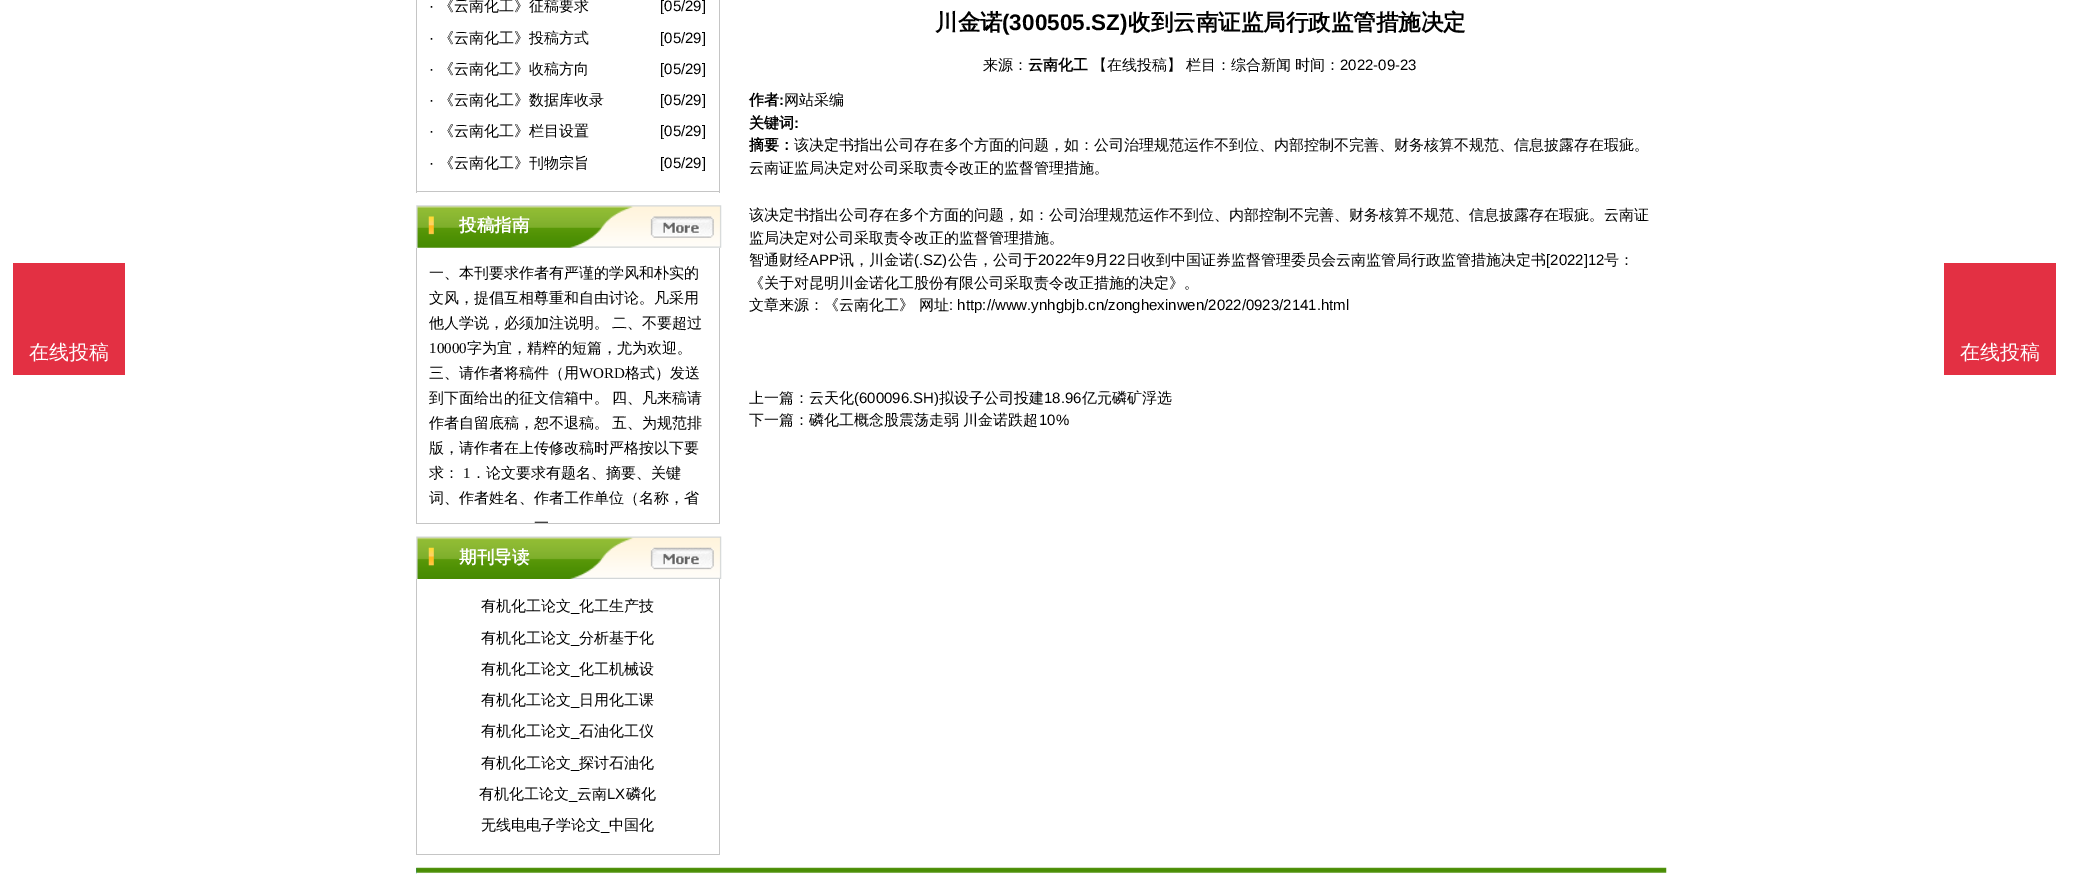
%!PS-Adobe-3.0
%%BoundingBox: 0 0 2081 874
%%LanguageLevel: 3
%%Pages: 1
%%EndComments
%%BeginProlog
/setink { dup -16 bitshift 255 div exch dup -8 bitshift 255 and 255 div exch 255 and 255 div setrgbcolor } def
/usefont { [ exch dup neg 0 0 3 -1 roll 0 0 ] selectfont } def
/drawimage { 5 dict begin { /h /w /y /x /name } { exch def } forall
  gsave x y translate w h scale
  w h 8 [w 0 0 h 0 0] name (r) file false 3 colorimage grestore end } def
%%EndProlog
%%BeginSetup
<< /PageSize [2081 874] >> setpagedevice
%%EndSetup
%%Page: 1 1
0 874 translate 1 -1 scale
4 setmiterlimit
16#FFFFFF setink
0 0 2081 874 rectfill
16#E33043 setink
13 263 112 112 rectfill
/WenQuanYiZenHei-Medium 20 usefont
16#FFFFFF setink
29 359 moveto (在线投稿) show
[
    [719 0 1 193 16#C5C5C5]
    [416 191 304 1 16#C5C5C5]
    [416 0 1 193 16#C5C5C5]
] { aload pop setink rectfill } forall
/LiberationSans-Regular 15 usefont
16#000000 setink
429 11 moveto (·) show
/WenQuanYiZenHei-Medium 15 usefont
439 11 moveto (《云南化工》征稿要求) show
/LiberationSans-Regular 15 usefont
660 11 moveto ([05/29]) show
429 43 moveto (·) show
/WenQuanYiZenHei-Medium 15 usefont
439 43 moveto (《云南化工》投稿方式) show
/LiberationSans-Regular 15 usefont
660 43 moveto ([05/29]) show
429 74 moveto (·) show
/WenQuanYiZenHei-Medium 15 usefont
439 74 moveto (《云南化工》收稿方向) show
/LiberationSans-Regular 15 usefont
660 74 moveto ([05/29]) show
429 105 moveto (·) show
/WenQuanYiZenHei-Medium 15 usefont
439 105 moveto (《云南化工》数据库收录) show
/LiberationSans-Regular 15 usefont
660 105 moveto ([05/29]) show
429 136 moveto (·) show
/WenQuanYiZenHei-Medium 15 usefont
439 136 moveto (《云南化工》栏目设置) show
/LiberationSans-Regular 15 usefont
660 136 moveto ([05/29]) show
429 168 moveto (·) show
/WenQuanYiZenHei-Medium 15 usefont
439 168 moveto (《云南化工》刊物宗旨) show
/LiberationSans-Regular 15 usefont
660 168 moveto ([05/29]) show
(img1.raw) 416 205 306 43 drawimage
/WenQuanYiZenHei-Bold 17.5 usefont
16#FFFFFF setink
459 231 moveto (投稿指南) show
[
    [719 248 1 276 16#C5C5C5]
    [416 523 304 1 16#C5C5C5]
    [416 248 1 276 16#C5C5C5]
] { aload pop setink rectfill } forall
/WenQuanYiZenHei-Medium 15 usefont
16#000000 setink
429 278 moveto (一、本刊要求作者有严谨的学风和朴实的) show
429 303 moveto (文风，提倡互相尊重和自由讨论。凡采用) show
429 328 moveto -1 0 32 (他人学说，必须加注说明。 二、不要超过) widthshow
/LiberationSerif-Regular 15 usefont
429 353 moveto (10000) show
/WenQuanYiZenHei-Medium 15 usefont
467 353 moveto (字为宜，精粹的短篇，尤为欢迎。) show
429 378 moveto (三、请作者将稿件（用) show
/LiberationSerif-Regular 15 usefont
579 378 moveto (WORD) show
/WenQuanYiZenHei-Medium 15 usefont
625 378 moveto (格式）发送) show
429 403 moveto -1 0 32 (到下面给出的征文信箱中。 四、凡来稿请) widthshow
429 428 moveto -1 0 32 (作者自留底稿，恕不退稿。 五、为规范排) widthshow
429 453 moveto (版，请作者在上传修改稿时严格按以下要) show
429 478 moveto (求：) show
/LiberationSerif-Regular 15 usefont
463 478 moveto (1) show
/WenQuanYiZenHei-Medium 15 usefont
[
    [(．论文要求有题名、摘要、关键) 471 478]
    [(词、作者姓名、作者工作单位（名称，省) 429 503]
    [(一) 534 528]
] { aload pop moveto show } forall
(img2.raw) 416 536 306 43 drawimage
/WenQuanYiZenHei-Bold 17.5 usefont
16#FFFFFF setink
459 563 moveto (期刊导读) show
[
    [719 579 1 276 16#C5C5C5]
    [416 854 304 1 16#C5C5C5]
    [416 579 1 276 16#C5C5C5]
] { aload pop setink rectfill } forall
/WenQuanYiZenHei-Medium 15 usefont
16#000000 setink
481 611 moveto (有机化工论文) show
/LiberationSans-Regular 15 usefont
571 611 moveto (_) show
/WenQuanYiZenHei-Medium 15 usefont
[
    [(化工生产技) 579 611]
    [(有机化工论文) 481 643]
    [(分析基于化) 579 643]
] { aload pop moveto show } forall
/LiberationSans-Regular 15 usefont
571 643 moveto (_) show
/WenQuanYiZenHei-Medium 15 usefont
481 674 moveto (有机化工论文) show
579 674 moveto (化工机械设) show
/LiberationSans-Regular 15 usefont
571 674 moveto (_) show
/WenQuanYiZenHei-Medium 15 usefont
481 705 moveto (有机化工论文) show
579 705 moveto (日用化工课) show
/LiberationSans-Regular 15 usefont
571 705 moveto (_) show
/WenQuanYiZenHei-Medium 15 usefont
481 736 moveto (有机化工论文) show
/LiberationSans-Regular 15 usefont
571 736 moveto (_) show
/WenQuanYiZenHei-Medium 15 usefont
579 736 moveto (石油化工仪) show
481 768 moveto (有机化工论文) show
/LiberationSans-Regular 15 usefont
571 768 moveto (_) show
/WenQuanYiZenHei-Medium 15 usefont
[
    [(探讨石油化) 579 768]
    [(有机化工论文) 479 799]
    [(云南) 577 799]
] { aload pop moveto show } forall
/LiberationSans-Regular 15 usefont
607 799 moveto (LX) show
/WenQuanYiZenHei-Medium 15 usefont
626 799 moveto (磷化) show
/LiberationSans-Regular 15 usefont
569 799 moveto (_) show
/WenQuanYiZenHei-Medium 15 usefont
481 830 moveto (无线电电子学论文) show
609 830 moveto (中国化) show
/LiberationSans-Regular 15 usefont
601 830 moveto (_) show
/WenQuanYiZenHei-Bold 22.5 usefont
935 30 moveto (川金诺) show
/LiberationSans-Bold 22.5 usefont
1002 30 moveto (\(300505.SZ\)) show
/WenQuanYiZenHei-Bold 22.5 usefont
1128 30 moveto (收到云南证监局行政监管措施决定) show
/WenQuanYiZenHei-Medium 15 usefont
983 70 moveto (来源：) show
/WenQuanYiZenHei-Bold 15 usefont
1028 70 moveto (云南化工) show
/WenQuanYiZenHei-Medium 15 usefont
[
    [(【在线投稿】) 1092 70]
    [(栏目：综合新闻) 1186 70]
    [(时间：) 1295 70]
] { aload pop moveto show } forall
/LiberationSans-Regular 15 usefont
1340 70 moveto (2022-09-23) show
/WenQuanYiZenHei-Bold 15 usefont
749 105 moveto (作者) show
/LiberationSans-Bold 15 usefont
779 105 moveto (:) show
/WenQuanYiZenHei-Medium 15 usefont
784 105 moveto (网站采编) show
/WenQuanYiZenHei-Bold 15 usefont
749 128 moveto (关键词) show
/LiberationSans-Bold 15 usefont
794 128 moveto (:) show
/WenQuanYiZenHei-Bold 15 usefont
749 150 moveto (摘要：) show
/WenQuanYiZenHei-Medium 15 usefont
[
    [(该决定书指出公司存在多个方面的问题，如：公司治理规范运作不到位、内部控制不完善、财务核算不规范、信息披露存在瑕疵。) 794 150]
    [(云南证监局决定对公司采取责令改正的监督管理措施。) 749 173]
    [(该决定书指出公司存在多个方面的问题，如：公司治理规范运作不到位、内部控制不完善、财务核算不规范、信息披露存在瑕疵。云南证) 749 220]
    [(监局决定对公司采取责令改正的监督管理措施。) 749 243]
    [(智通财经) 749 265]
] { aload pop moveto show } forall
/LiberationSans-Regular 15 usefont
809 265 moveto (APP) show
/WenQuanYiZenHei-Medium 15 usefont
839 265 moveto (讯，川金诺) show
/LiberationSans-Regular 15 usefont
914 265 moveto (\(.SZ\)) show
/WenQuanYiZenHei-Medium 15 usefont
948 265 moveto (公告，公司于) show
/LiberationSans-Regular 15 usefont
1038 265 moveto (2022) show
/WenQuanYiZenHei-Medium 15 usefont
1071 265 moveto (年) show
/LiberationSans-Regular 15 usefont
1086 265 moveto (9) show
/WenQuanYiZenHei-Medium 15 usefont
1094 265 moveto (月) show
/LiberationSans-Regular 15 usefont
1109 265 moveto (22) show
/WenQuanYiZenHei-Medium 15 usefont
1126 265 moveto (日收到中国证券监督管理委员会云南监管局行政监管措施决定书) show
/LiberationSans-Regular 15 usefont
1546 265 moveto ([2022]12) show
/WenQuanYiZenHei-Medium 15 usefont
[
    [(号：) 1604 265]
    [(《关于对昆明川金诺化工股份有限公司采取责令改正措施的决定》。) 749 288]
    [(文章来源：《云南化工》) 749 310]
    [(网址) 919 310]
] { aload pop moveto show } forall
/LiberationSans-Regular 15 usefont
949 310 moveto (: http://www.ynhgbjb.cn/zonghexinwen/2022/0923/2141.html) show
/WenQuanYiZenHei-Medium 15 usefont
749 403 moveto (上一篇：云天化) show
/LiberationSans-Regular 15 usefont
854 403 moveto (\(600096.SH\)) show
/WenQuanYiZenHei-Medium 15 usefont
939 403 moveto (拟设子公司投建) show
/LiberationSans-Regular 15 usefont
1044 403 moveto (18.96) show
/WenQuanYiZenHei-Medium 15 usefont
[
    [(亿元磷矿浮选) 1082 403]
    [(下一篇：) 749 425]
    [(磷化工概念股震荡走弱 川金诺跌超) 809 425]
] { aload pop moveto show } forall
/LiberationSans-Regular 15 usefont
1039 425 moveto (10%) show
16#E33043 setink
1944 263 112 112 rectfill
/WenQuanYiZenHei-Medium 20 usefont
16#FFFFFF setink
1960 359 moveto (在线投稿) show
(img3.raw) 416 867 1251 7 drawimage
showpage
%%EOF
